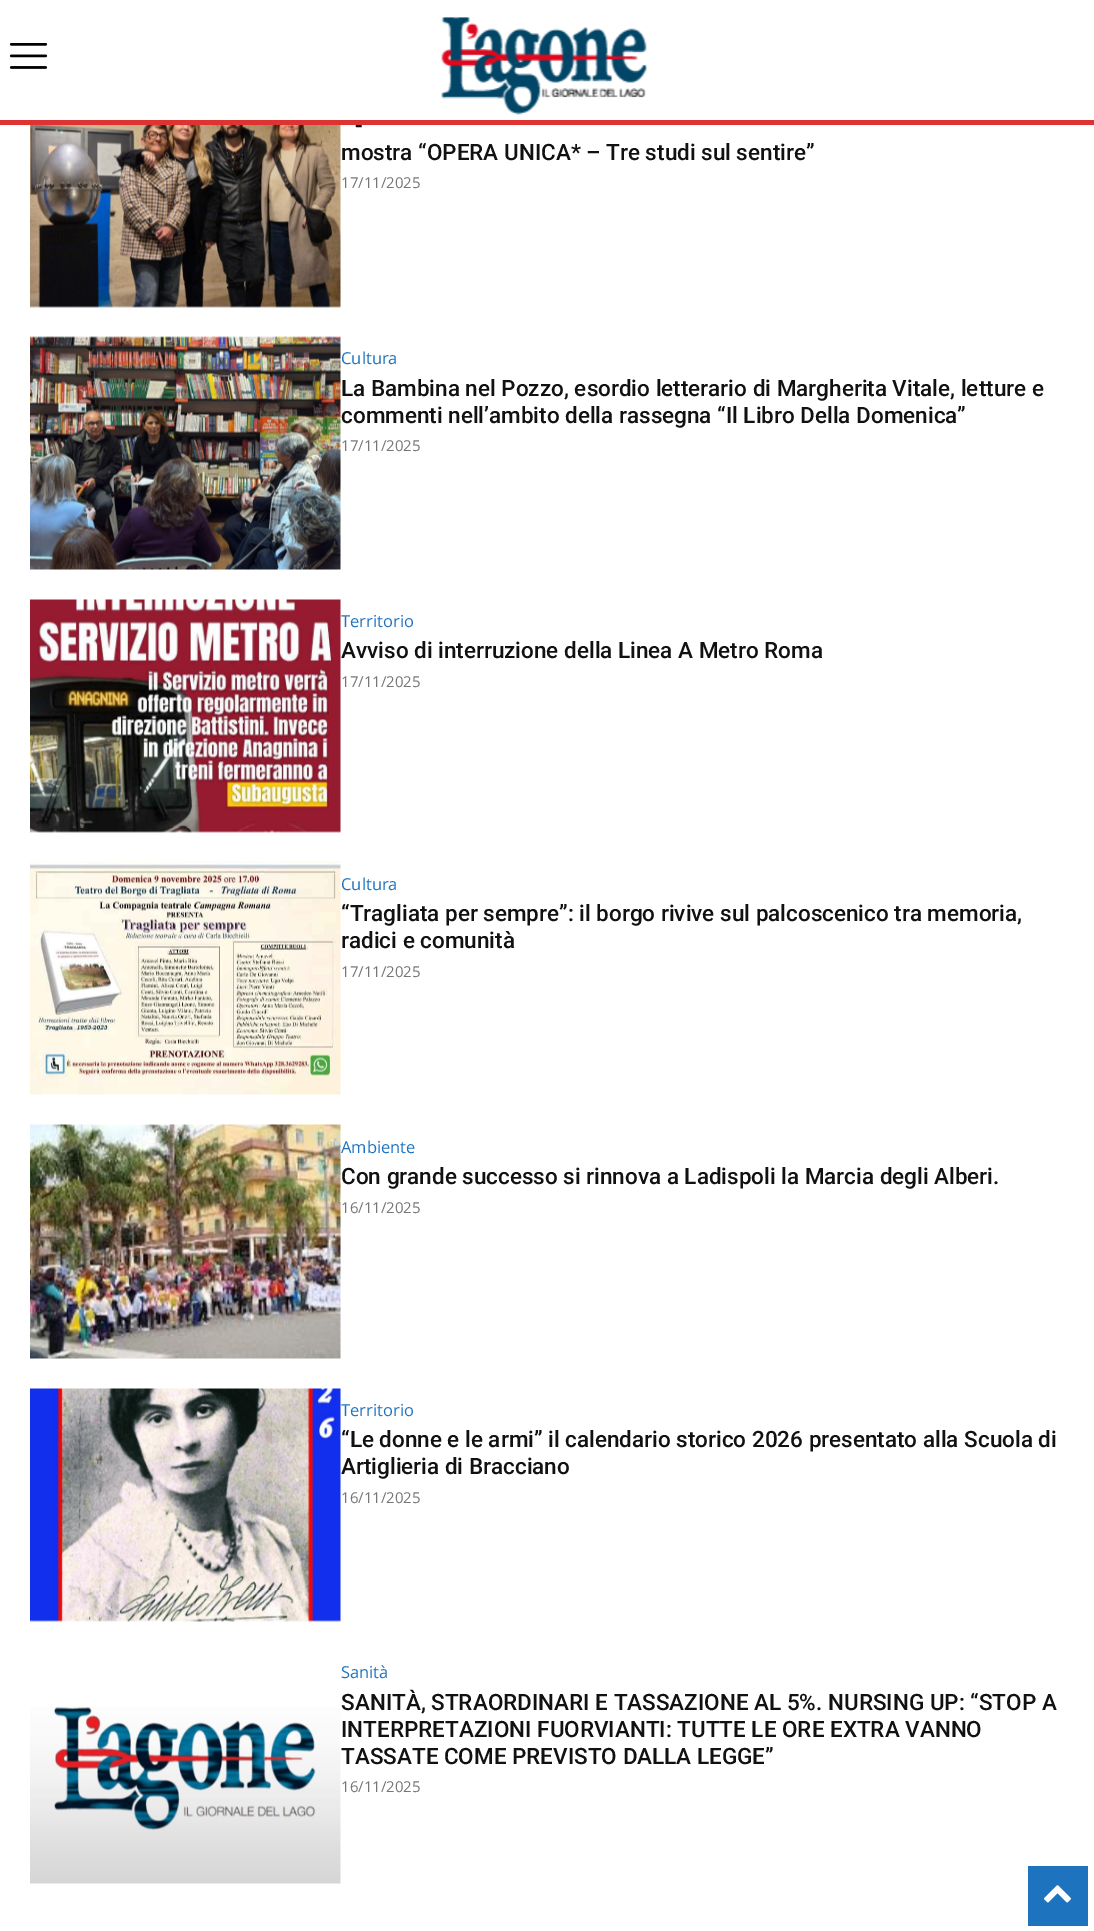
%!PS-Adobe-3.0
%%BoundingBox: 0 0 1094 1931
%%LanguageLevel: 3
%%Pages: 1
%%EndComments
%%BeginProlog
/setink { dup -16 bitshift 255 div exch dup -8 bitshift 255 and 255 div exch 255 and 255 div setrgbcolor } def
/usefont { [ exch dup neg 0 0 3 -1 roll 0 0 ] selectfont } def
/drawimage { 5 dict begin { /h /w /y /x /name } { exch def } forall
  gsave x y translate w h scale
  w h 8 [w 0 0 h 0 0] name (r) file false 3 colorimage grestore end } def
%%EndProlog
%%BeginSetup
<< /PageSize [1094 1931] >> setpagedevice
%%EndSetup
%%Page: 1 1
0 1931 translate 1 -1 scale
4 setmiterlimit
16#FFFFFF setink
0 0 1094 1931 rectfill
(img1.raw) 9 43 39 26 drawimage
(img2.raw) 441 17 206 98 drawimage
16#DD3333 setink
0 120 1094 5 rectfill
(img3.raw) 30 125 311 183 drawimage
/Roboto-Medium 22.5 usefont
16#111111 setink
355 133 moveto (-) show
341 160 moveto (mostra “OPERA UNICA* – Tre studi sul sentire”) show
/OpenSans-Regular 15 usefont
16#767676 setink
341 188 moveto (17/11/2025) show
(img4.raw) 30 336 311 234 drawimage
/OpenSans-Regular 16.5 usefont
16#1E73BE setink
341 364 moveto (Cultura) show
/Roboto-Medium 22.5 usefont
16#111111 setink
341 396 moveto (La Bambina nel Pozzo, esordio letterario di Margherita Vitale, letture e) show
341 423 moveto (commenti nell’ambito della rassegna “Il Libro Della Domenica”) show
/OpenSans-Regular 15 usefont
16#767676 setink
341 451 moveto (17/11/2025) show
(img5.raw) 30 599 311 234 drawimage
/OpenSans-Regular 16.5 usefont
16#1E73BE setink
341 627 moveto (Territorio) show
/Roboto-Medium 22.5 usefont
16#111111 setink
341 658 moveto (Avviso di interruzione della Linea A Metro Roma) show
/OpenSans-Regular 15 usefont
16#767676 setink
341 687 moveto (17/11/2025) show
(img6.raw) 30 861 311 234 drawimage
/OpenSans-Regular 16.5 usefont
16#1E73BE setink
341 890 moveto (Cultura) show
/Roboto-Medium 22.5 usefont
16#111111 setink
341 921 moveto (“Tragliata per sempre”: il borgo rivive sul palcoscenico tra memoria,) show
341 948 moveto (radici e comunità) show
/OpenSans-Regular 15 usefont
16#767676 setink
341 977 moveto (17/11/2025) show
(img7.raw) 30 1124 311 235 drawimage
/OpenSans-Regular 16.5 usefont
16#1E73BE setink
341 1153 moveto (Ambiente) show
/Roboto-Medium 22.5 usefont
16#111111 setink
341 1184 moveto (Con grande successo si rinnova a Ladispoli la Marcia degli Alberi.) show
/OpenSans-Regular 15 usefont
16#767676 setink
341 1213 moveto (16/11/2025) show
(img8.raw) 30 1388 311 234 drawimage
/OpenSans-Regular 16.5 usefont
16#1E73BE setink
341 1416 moveto (Territorio) show
/Roboto-Medium 22.5 usefont
16#111111 setink
341 1447 moveto (“Le donne e le armi” il calendario storico 2026 presentato alla Scuola di) show
341 1474 moveto (Artiglieria di Bracciano) show
/OpenSans-Regular 15 usefont
16#767676 setink
341 1503 moveto (16/11/2025) show
(img9.raw) 30 1706 311 178 drawimage
/OpenSans-Regular 16.5 usefont
16#1E73BE setink
341 1678 moveto (Sanità) show
/Roboto-Medium 22.5 usefont
16#111111 setink
[
    [(SANITÀ, STRAORDINARI E TASSAZIONE AL 5%. NURSING UP: “STOP A) 341 1710]
    [(INTERPRETAZIONI FUORVIANTI: TUTTE LE ORE EXTRA VANNO) 341 1737]
    [(TASSATE COME PREVISTO DALLA LEGGE”) 341 1764]
] { aload pop moveto show } forall
/OpenSans-Regular 15 usefont
16#767676 setink
341 1792 moveto (16/11/2025) show
16#1E73BE setink
1028 1866 60 60 rectfill
(img10.raw) 1044 1885 27 18 drawimage
showpage
%%EOF
